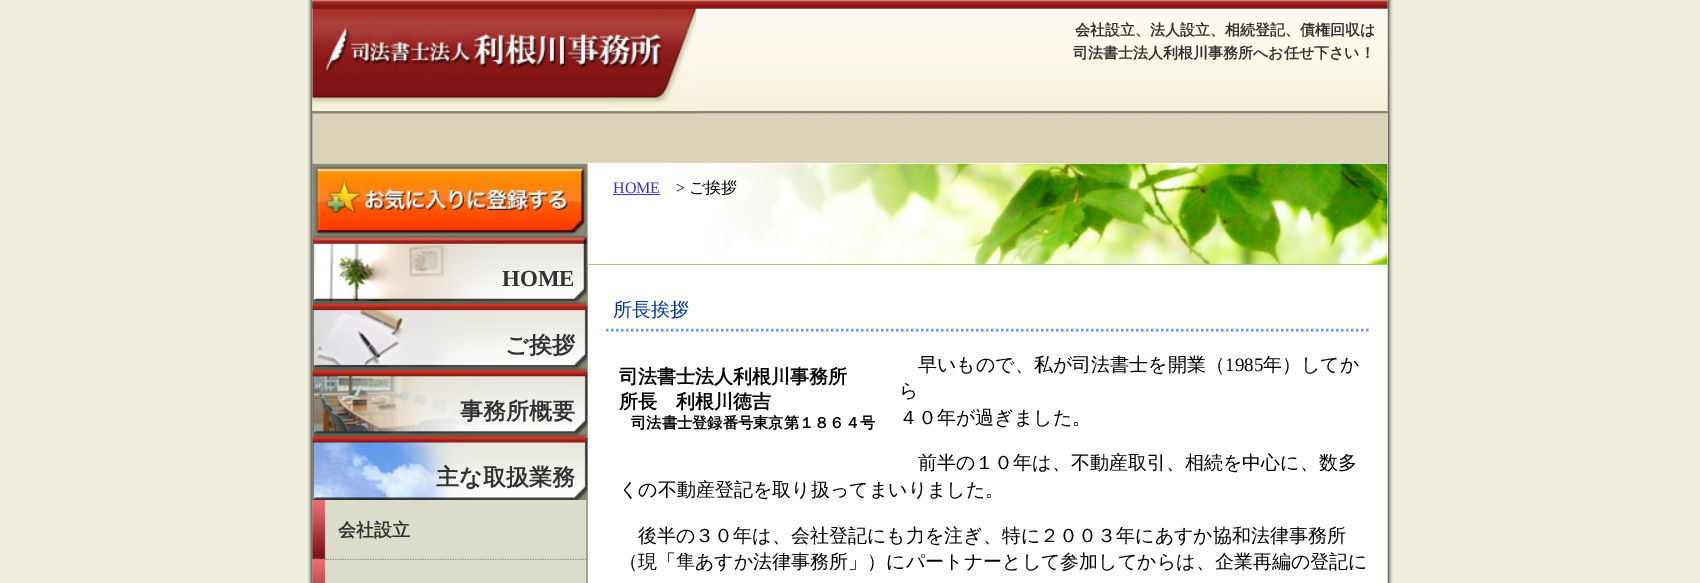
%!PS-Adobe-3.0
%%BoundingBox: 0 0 1700 583
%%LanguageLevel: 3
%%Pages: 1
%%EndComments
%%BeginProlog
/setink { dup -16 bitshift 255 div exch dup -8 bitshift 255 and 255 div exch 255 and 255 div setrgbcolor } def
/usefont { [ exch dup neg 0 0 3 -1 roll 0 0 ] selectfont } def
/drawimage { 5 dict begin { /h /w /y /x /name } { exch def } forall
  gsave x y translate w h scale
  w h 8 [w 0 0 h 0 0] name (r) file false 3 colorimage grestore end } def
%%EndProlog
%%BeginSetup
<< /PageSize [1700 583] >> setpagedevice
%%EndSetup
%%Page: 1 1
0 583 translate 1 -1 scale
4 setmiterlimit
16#EFEEDD setink
0 0 1700 583 rectfill
(img1.raw) 307 0 1086 583 drawimage
(img2.raw) 312 0 1076 114 drawimage
(img3.raw) 312 0 385 114 drawimage
/WenQuanYiZenHei-Bold 15 usefont
16#333333 setink
1075 35 moveto (会社設立、法人設立、相続登記、債権回収は) show
1073 58 moveto (司法書士法人利根川事務所へお任せ下さい！) show
16#DAD3B7 setink
313 114 1075 49 rectfill
16#FFFFFF setink
1387 163 1 1 rectfill
(img4.raw) 312 163 1076 420 drawimage
1387 164 1 100 rectfill
(img12.raw) 587 163 801 102 drawimage
(img5.raw) 312 163 276 72 drawimage
(img6.raw) 312 235 276 67 drawimage
/LiberationSerif-Bold 23 usefont
16#333333 setink
502 286 moveto (HOME) show
(img7.raw) 312 301 276 67 drawimage
/WenQuanYiZenHei-Bold 23 usefont
505 353 moveto (ご挨拶) show
(img8.raw) 312 367 276 67 drawimage
460 419 moveto (事務所概要) show
(img9.raw) 312 433 276 67 drawimage
436 485 moveto (主な取扱業務) show
(img10.raw) 312 500 276 60 drawimage
/WenQuanYiZenHei-Bold 18 usefont
338 536 moveto (会社設立) show
(img11.raw) 312 560 276 23 drawimage
16#A8CB77 setink
588 264 800 1 rectfill
/LiberationSerif-Regular 16 usefont
16#3333CC setink
613 193 moveto (HOME) show
613 194 47 1 rectfill
16#000000 setink
676 193 moveto (>) show
/WenQuanYiZenHei-Medium 16 usefont
689 193 moveto (ご挨拶) show
16#6699FF setink
2.5 setlinewidth
[2.5 2.5] 0 setdash
606 330 moveto 1369 330 lineto stroke
/WenQuanYiZenHei-Medium 19 usefont
16#003399 setink
613 316 moveto (所長挨拶) show
/WenQuanYiZenHei-Bold 19 usefont
16#000000 setink
619 383 moveto (司法書士法人利根川事務所) show
619 408 moveto (所長　利根川徳吉) show
/WenQuanYiZenHei-Bold 15.25 usefont
631 428 moveto (司法書士登録番号東京第１８６４号) show
/WenQuanYiZenHei-Medium 19 usefont
918 371 moveto (早いもので、私が司法書士を開業（) show
/LiberationSerif-Regular 19 usefont
1225 371 moveto (1985) show
/WenQuanYiZenHei-Medium 19 usefont
[
    [(年）してか) 1263 371]
    [(ら) 899 397]
    [(４０年が過ぎました。) 899 424]
    [(前半の１０年は、不動産取引、相続を中心に、数多) 918 469]
    [(くの不動産登記を取り扱ってまいりました。) 619 496]
    [(後半の３０年は、会社登記にも力を注ぎ、特に２００３年にあすか協和法律事務所) 638 542]
    [(（現「隼あすか法律事務所」）にパートナーとして参加してからは、企業再編の登記に) 619 568]
] { aload pop moveto show } forall
showpage
%%EOF
